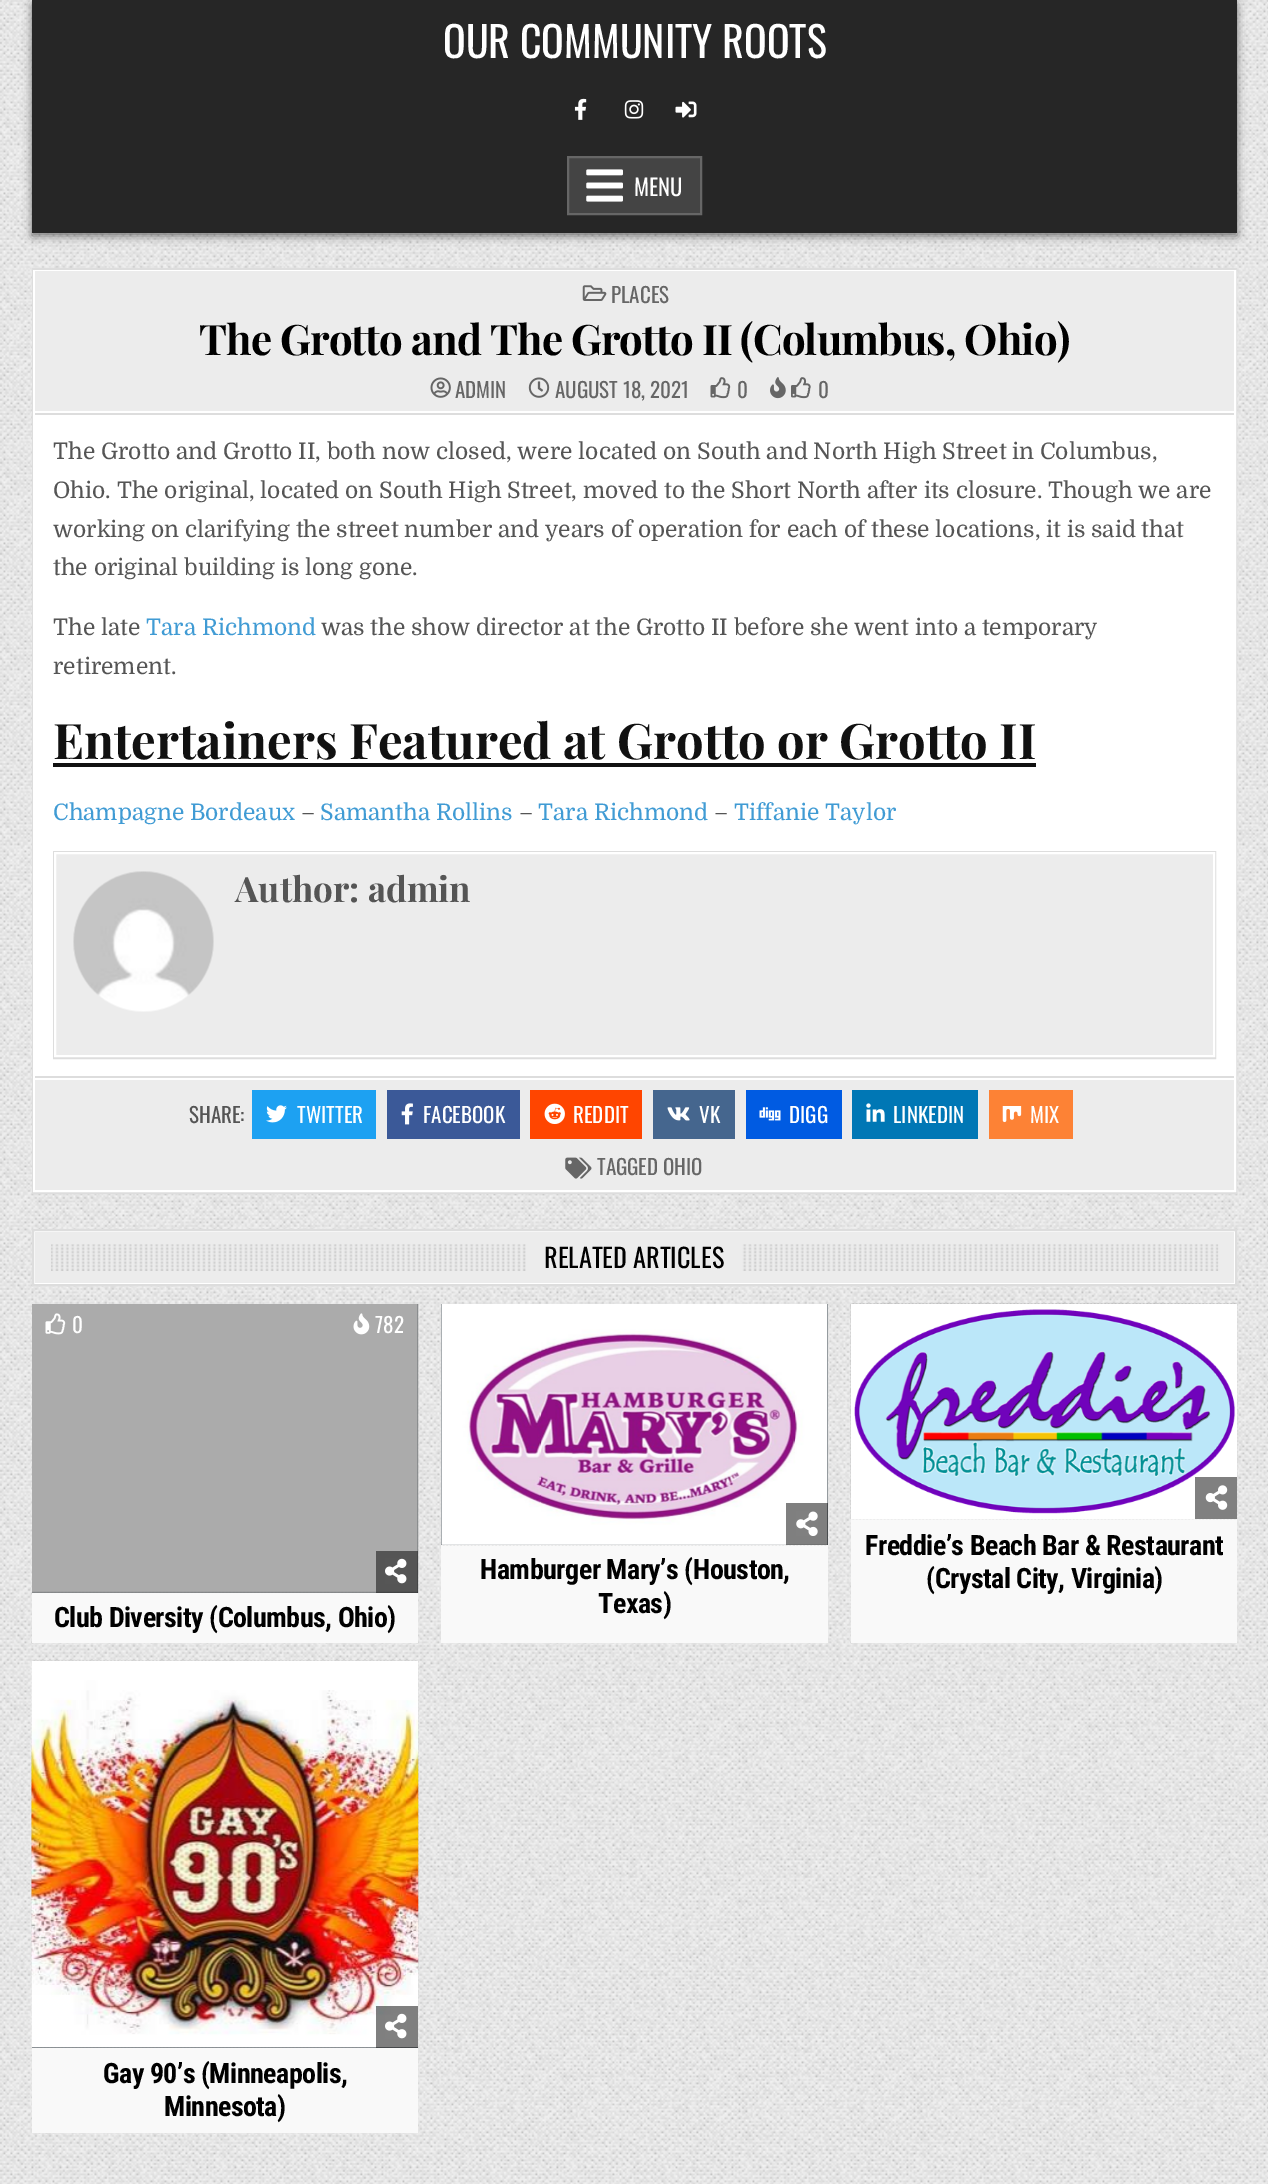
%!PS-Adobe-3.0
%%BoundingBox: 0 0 1268 2184
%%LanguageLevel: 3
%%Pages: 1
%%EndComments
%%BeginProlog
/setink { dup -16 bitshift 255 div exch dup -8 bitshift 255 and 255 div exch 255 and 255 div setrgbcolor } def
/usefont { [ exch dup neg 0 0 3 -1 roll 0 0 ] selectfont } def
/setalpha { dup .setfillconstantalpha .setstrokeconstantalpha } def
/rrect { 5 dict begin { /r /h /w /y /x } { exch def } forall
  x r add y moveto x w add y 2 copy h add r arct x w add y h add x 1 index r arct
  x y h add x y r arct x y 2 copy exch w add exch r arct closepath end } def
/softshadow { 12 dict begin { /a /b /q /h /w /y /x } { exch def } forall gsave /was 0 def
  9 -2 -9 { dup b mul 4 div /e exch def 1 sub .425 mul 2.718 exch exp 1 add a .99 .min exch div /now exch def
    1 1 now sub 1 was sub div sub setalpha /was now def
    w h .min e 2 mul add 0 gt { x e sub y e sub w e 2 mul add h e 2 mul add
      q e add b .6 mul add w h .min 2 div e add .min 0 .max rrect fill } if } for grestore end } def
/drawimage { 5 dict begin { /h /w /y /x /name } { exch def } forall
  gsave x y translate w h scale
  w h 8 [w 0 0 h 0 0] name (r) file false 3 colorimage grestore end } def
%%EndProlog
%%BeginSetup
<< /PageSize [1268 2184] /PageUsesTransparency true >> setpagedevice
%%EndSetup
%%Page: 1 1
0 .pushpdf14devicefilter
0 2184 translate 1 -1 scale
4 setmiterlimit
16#FFFFFF setink
0 0 1268 2184 rectfill
(img1.raw) 0 0 1268 2184 drawimage
16#000000 setink
32 4 1205 232 0 4.5 0.5 softshadow
16#262626 setink
32 0 1205 233 rectfill
/Oswald-Regular 42 usefont
16#FFFFFF setink
443 58 moveto (OUR COMMUNITY ROOTS) show
(img2.raw) 574 98 13 22 drawimage
(img3.raw) 624 100 20 19 drawimage
(img4.raw) 675 101 22 17 drawimage
16#444444 setink
568 157 moveto 701 157 lineto 701 214 lineto 568 214 lineto closepath gsave fill grestore
16#666666 setink
2 setlinewidth
stroke
(img5.raw) 586 169 37 33 drawimage
/Oswald-Regular 22.75 usefont
16#FFFFFF setink
634 196 moveto (MENU) show
35 415 1199 661 rectfill
16#DDDDDD setink
33 269 1203 924 rectstroke
16#FFFFFF setink
34 271 1201 920 rectstroke
[
    [35 271 1199 140 16#ECECEC]
    [35 413 1199 2 16#DDDDDD]
    [35 411 1199 2 16#FFFFFF]
] { aload pop setink rectfill } forall
(img6.raw) 582 285 25 16 drawimage
/Oswald-Regular 21 usefont
16#666666 setink
611 303 moveto (PLACES) show
/PlayfairDisplay-Bold 42 usefont
16#000000 setink
199 355 moveto -0.9 0 (The Grotto and The Grotto II \(Columbus, Ohio\)) ashow
(img7.raw) 430 377 21 21 drawimage
/Oswald-Regular 21 usefont
16#666666 setink
455 398 moveto (ADMIN) show
(img8.raw) 528 377 22 21 drawimage
555 398 moveto (AUGUST 18, 2021) show
(img9.raw) 710 377 21 22 drawimage
737 398 moveto (0) show
(img10.raw) 770 377 16 22 drawimage
(img11.raw) 791 377 20 22 drawimage
818 398 moveto (0) show
/Domine-Regular 22.75 usefont
16#555555 setink
[
    [(The Grotto and Grotto II, both now closed, were located on South and North High Street in Columbus,) 53 459]
    [(Ohio. The original, located on South High Street, moved to the Short North after its closure. Though we are) 53 498]
    [(working on clarifying the street number and years of operation for each of these locations, it is said that) 53 537]
    [(the original building is long gone.) 53 575]
    [(The late) 53 635]
] { aload pop moveto show } forall
16#409BD4 setink
146 635 moveto (Tara Richmond) show
16#555555 setink
321 635 moveto (was the show director at the Grotto II before she went into a temporary) show
53 674 moveto (retirement.) show
/PlayfairDisplay-Bold 49 usefont
16#111111 setink
53 759 moveto (Entertainers Featured at Grotto or Grotto II) show
53 763 983 4 rectfill
/Domine-Regular 22.75 usefont
16#409BD4 setink
53 820 moveto (Champagne Bordeaux) show
16#555555 setink
301 820 moveto (–) show
16#409BD4 setink
320 820 moveto (Samantha Rollins) show
16#555555 setink
519 820 moveto (–) show
16#409BD4 setink
538 820 moveto (Tara Richmond) show
16#555555 setink
714 820 moveto (–) show
16#409BD4 setink
734 820 moveto (Tiffanie Taylor) show
16#ECECEC setink
56 854 1157 201 rectfill
16#DDDDDD setink
54 852 1161 206 rectstroke
16#FFFFFF setink
55 853 1159 203 rectstroke
(img12.raw) 73 871 141 141 drawimage
/PlayfairDisplay-Bold 35 usefont
16#555555 setink
235 902 moveto (Author: admin) show
[
    [35 1080 1199 110 16#ECECEC]
    [35 1076 1199 2 16#DDDDDD]
    [35 1078 1199 2 16#FFFFFF]
] { aload pop setink rectfill } forall
/Oswald-Regular 21 usefont
16#555555 setink
189 1123 moveto (SHARE:) show
16#1DA1F2 setink
252 1090 124 49 rectfill
(img13.raw) 266 1105 21 18 drawimage
16#FFFFFF setink
297 1123 moveto (TWITTER) show
16#3B5998 setink
387 1090 133 49 rectfill
(img14.raw) 401 1103 12 22 drawimage
16#FFFFFF setink
423 1123 moveto (FACEBOOK) show
16#FF4500 setink
530 1090 112 49 rectfill
(img15.raw) 544 1103 21 21 drawimage
16#FFFFFF setink
573 1123 moveto (REDDIT) show
16#45668E setink
653 1090 82 49 rectfill
(img16.raw) 667 1107 23 14 drawimage
16#FFFFFF setink
699 1123 moveto (VK) show
16#005BE2 setink
746 1090 96 49 rectfill
(img17.raw) 759 1107 22 14 drawimage
16#FFFFFF setink
789 1123 moveto (DIGG) show
16#0077B5 setink
852 1090 126 49 rectfill
(img18.raw) 866 1103 19 19 drawimage
16#FFFFFF setink
893 1123 moveto (LINKEDIN) show
16#FD8235 setink
989 1090 84 49 rectfill
(img19.raw) 1002 1106 20 17 drawimage
16#FFFFFF setink
1030 1123 moveto (MIX) show
(img20.raw) 565 1157 27 22 drawimage
16#666666 setink
597 1175 moveto (TAGGED OHIO) show
16#ECECEC setink
35 1232 1199 51 rectfill
gsave
33 1230 1203 55 rectclip
16#FFFFFF setink
-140 1057 moveto 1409 1057 lineto 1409 1458 lineto -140 1458 lineto closepath 32 1228 moveto 1234 1228 lineto 1234 1283 lineto 32 1283 lineto closepath eofill
-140 1057 moveto 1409 1057 lineto 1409 1458 lineto -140 1458 lineto closepath 35 1232 moveto 1237 1232 lineto 1237 1286 lineto 35 1286 lineto closepath eofill
grestore
16#DDDDDD setink
33 1230 1203 55 rectstroke
(img21.raw) 51 1244 1168 27 drawimage
16#ECECEC setink
527 1244 214 27 rectfill
/Oswald-Regular 26.25 usefont
16#000000 setink
544 1268 moveto (RELATED ARTICLES) show
16#F9F9F9 setink
32 1593 386 50 rectfill
16#1E2B34 setink
32 1304 386 289 rectfill
(img22.raw) 32 1304 387 289 drawimage
(img23.raw) 32 1304 387 289 drawimage
(img24.raw) 45 1313 21 22 drawimage
/Oswald-Regular 21 usefont
16#FFFFFF setink
72 1333 moveto (0) show
(img25.raw) 353 1313 17 22 drawimage
375 1333 moveto (782) show
0.5 setalpha
16#000000 setink
376 1551 42 42 rectfill
1 setalpha
(img26.raw) 385 1558 22 26 drawimage
/RobotoCondensed-Bold 28 usefont
54 1627 moveto -0.5 0 (Club Diversity \(Columbus, Ohio\)) ashow
16#F9F9F9 setink
441 1545 387 98 rectfill
16#1E2B34 setink
441 1304 387 241 rectfill
(img27.raw) 440 1304 389 242 drawimage
(img28.raw) 440 1304 388 242 drawimage
0.5 setalpha
16#000000 setink
786 1503 42 42 rectfill
1 setalpha
(img29.raw) 796 1511 22 25 drawimage
480 1579 moveto -0.5 0 (Hamburger Mary’s \(Houston,) ashow
598 1613 moveto -0.5 0 (Texas\)) ashow
16#F9F9F9 setink
851 1519 386 124 rectfill
(img30.raw) 850 1303 388 217 drawimage
(img31.raw) 851 1304 387 215 drawimage
16#808080 setink
1195 1477 42 42 rectfill
(img32.raw) 1205 1485 23 25 drawimage
16#000000 setink
865 1555 moveto -0.5 0 (Freddie’s Beach Bar & Restaurant) ashow
926 1588 moveto -0.5 0 (\(Crystal City, Virginia\)) ashow
16#F9F9F9 setink
32 2048 386 85 rectfill
16#1E2B34 setink
32 2047 386 1 rectfill
(img33.raw) 31 1660 388 388 drawimage
(img34.raw) 31 1660 388 388 drawimage
0.5 setalpha
16#000000 setink
376 2006 42 42 rectfill
1 setalpha
(img35.raw) 385 2013 22 26 drawimage
103 2083 moveto -0.5 0 (Gay 90’s \(Minneapolis,) ashow
164 2116 moveto -0.5 0 (Minnesota\)) ashow
.poppdf14devicefilter showpage
%%EOF
